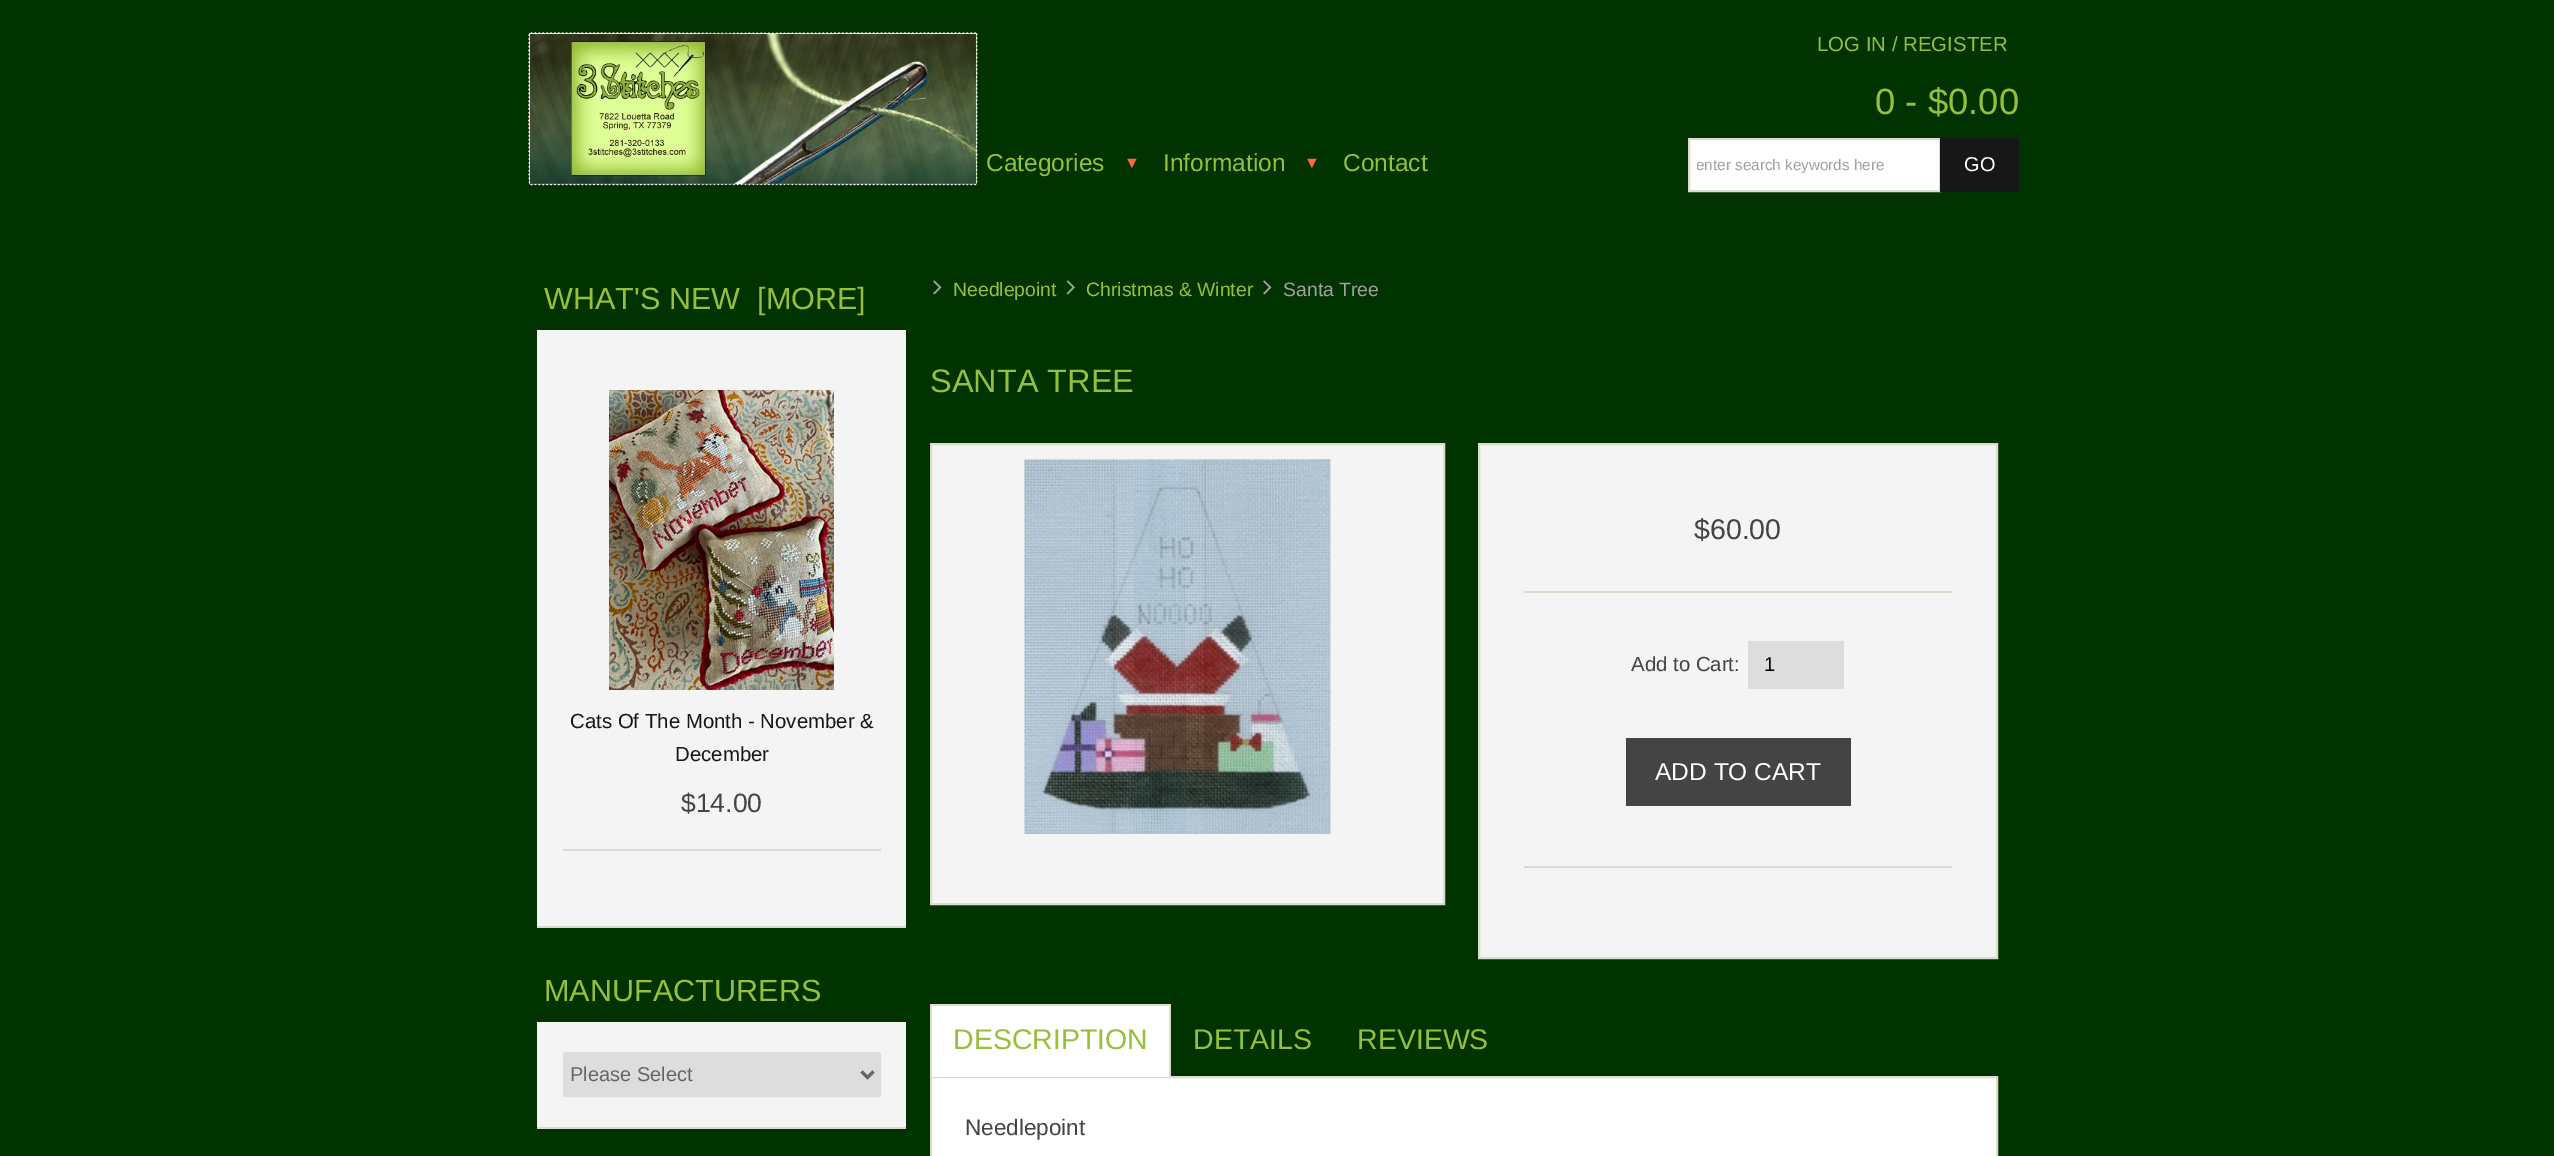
%!PS-Adobe-3.0
%%BoundingBox: 0 0 2554 1156
%%LanguageLevel: 3
%%Pages: 1
%%EndComments
%%BeginProlog
/setink { dup -16 bitshift 255 div exch dup -8 bitshift 255 and 255 div exch 255 and 255 div setrgbcolor } def
/usefont { [ exch dup neg 0 0 3 -1 roll 0 0 ] selectfont } def
/rrect { 5 dict begin { /r /h /w /y /x } { exch def } forall
  x r add y moveto x w add y 2 copy h add r arct x w add y h add x 1 index r arct
  x y h add x y r arct x y 2 copy exch w add exch r arct closepath end } def
/drawimage { 5 dict begin { /h /w /y /x /name } { exch def } forall
  gsave x y translate w h scale
  w h 8 [w 0 0 h 0 0] name (r) file false 3 colorimage grestore end } def
%%EndProlog
%%BeginSetup
<< /PageSize [2554 1156] >> setpagedevice
%%EndSetup
%%Page: 1 1
0 1156 translate 1 -1 scale
4 setmiterlimit
16#003300 setink
0 0 2554 1156 rectfill
(img1.raw) 528 30 450 158 drawimage
/LiberationSans-Regular 24.5 usefont
16#97BF3B setink
986 171 moveto (Categories) show
/LiberationSans-Italic 16 usefont
16#FF6938 setink
1124 168 moveto (▼) show
/LiberationSans-Regular 24.5 usefont
16#97BF3B setink
1163 171 moveto (Information) show
/LiberationSans-Italic 16 usefont
16#FF6938 setink
1304 168 moveto (▼) show
/LiberationSans-Regular 24.5 usefont
16#97BF3B setink
1343 171 moveto (Contact) show
/LiberationSans-Regular 20.4 usefont
1817 51 moveto (LOG IN / REGISTER) show
/LiberationSans-Regular 36.5 usefont
1875 114 moveto (0 - $0.00) show
16#FFFFFF setink
1689 139 moveto 1940 139 lineto 1940 191 lineto 1689 191 lineto closepath gsave fill grestore
16#DBDBCE setink
2 setlinewidth
stroke
gsave
1697 156 240 17 rectclip
/LiberationSans-Regular 15.25 usefont
16#A0A0A0 setink
1696 170 moveto (enter search keywords here) show
grestore
16#171717 setink
1940 138 79 54 rectfill
/LiberationSans-Regular 20 usefont
16#FFFFFD setink
1964 171 moveto (GO) show
/LiberationSans-Regular 30.6 usefont
16#97BF3B setink
544 309 moveto (WHAT'S NEW  [MORE]) show
16#F4F4F4 setink
537 330 369 596 rectfill
16#DBDBCE setink
537 926 369 2 rectfill
(img2.raw) 609 390 225 300 drawimage
/LiberationSans-Regular 20.4 usefont
16#171717 setink
570 728 moveto (Cats Of The Month - November &) show
675 761 moveto (December) show
16#DBDBCE setink
563 849 318 2 rectfill
/LiberationSans-Regular 26.5 usefont
16#444444 setink
681 812 moveto ($14.00) show
/LiberationSans-Regular 30.6 usefont
16#97BF3B setink
544 1001 moveto (MANUFACTURERS) show
16#F4F4F4 setink
537 1022 369 105 rectfill
16#DBDBCE setink
537 1127 369 2 rectfill
16#DDDDDE setink
563 1052 318 45 3 rrect fill
16#FFFFFF setink
566 1054 moveto 878 1054 lineto 879 1056 lineto 879 1055 879 1053 878 1053 curveto 566 1053 lineto 564 1054 lineto 564 1056 lineto 564 1055 565 1054 566 1054 curveto closepath fill
16#DDDDDD setink
564 1053 316 43 2 rrect stroke
16#666666 setink
3 setlinewidth
861.5 1071.5 moveto 867.5 1077.5 lineto 873.5 1071.5 lineto stroke
/LiberationSans-Regular 20 usefont
570 1081 moveto (Please Select) show
(img3.raw) 933 280 9 15 drawimage
/LiberationSans-Regular 19.4 usefont
16#97BF3B setink
953 296 moveto (Needlepoint) show
(img4.raw) 1066 280 9 15 drawimage
1086 296 moveto (Christmas & Winter) show
(img3.raw) 1263 280 9 15 drawimage
16#A0A0A0 setink
1283 296 moveto (Santa Tree) show
/LiberationSans-Regular 32.5 usefont
16#97BF3B setink
930 392 moveto (SANTA TREE) show
16#F4F4F4 setink
931 444 moveto 1444 444 lineto 1444 904 lineto 931 904 lineto closepath gsave fill grestore
16#DBDBCE setink
2 setlinewidth
stroke
(img5.raw) 1024 459 307 375 drawimage
16#F4F4F4 setink
1479 444 moveto 1997 444 lineto 1997 958 lineto 1479 958 lineto closepath gsave fill grestore
16#DBDBCE setink
stroke
1524 591 428 2 rectfill
/LiberationSans-Regular 28.5 usefont
16#444444 setink
1694 539 moveto ($60.00) show
16#DBDBCE setink
1524 866 428 2 rectfill
/LiberationSans-Regular 20.4 usefont
16#444444 setink
1631 671 moveto (Add to Cart:) show
16#DDDDDE setink
1748 641 96 48 rectfill
/LiberationSans-Regular 20 usefont
16#000000 setink
1764 671 moveto (1) show
16#444444 setink
1626 738 225 68 rectfill
/LiberationSans-Regular 24.5 usefont
16#FFFFFD setink
1655 780 moveto (ADD TO CART) show
16#FFFFFF setink
931 1077 moveto 1997 1077 lineto 1997 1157 lineto 931 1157 lineto closepath gsave fill grestore
16#DBDBCE setink
stroke
[
    [932 1006 237 71 16#FFFFFF]
    [930 1004 240 2 16#DBDBCE]
    [1169 1004 2 73 16#DBDBCE]
    [930 1004 2 73 16#DBDBCE]
] { aload pop setink rectfill } forall
/LiberationSans-Regular 28.5 usefont
16#97BF3B setink
[
    [(DESCRIPTION) 953 1049]
    [(DETAILS) 1193 1049]
    [(REVIEWS) 1357 1049]
] { aload pop moveto show } forall
/LiberationSans-Regular 22.5 usefont
16#444444 setink
965 1135 moveto (Needlepoint) show
showpage
%%EOF
